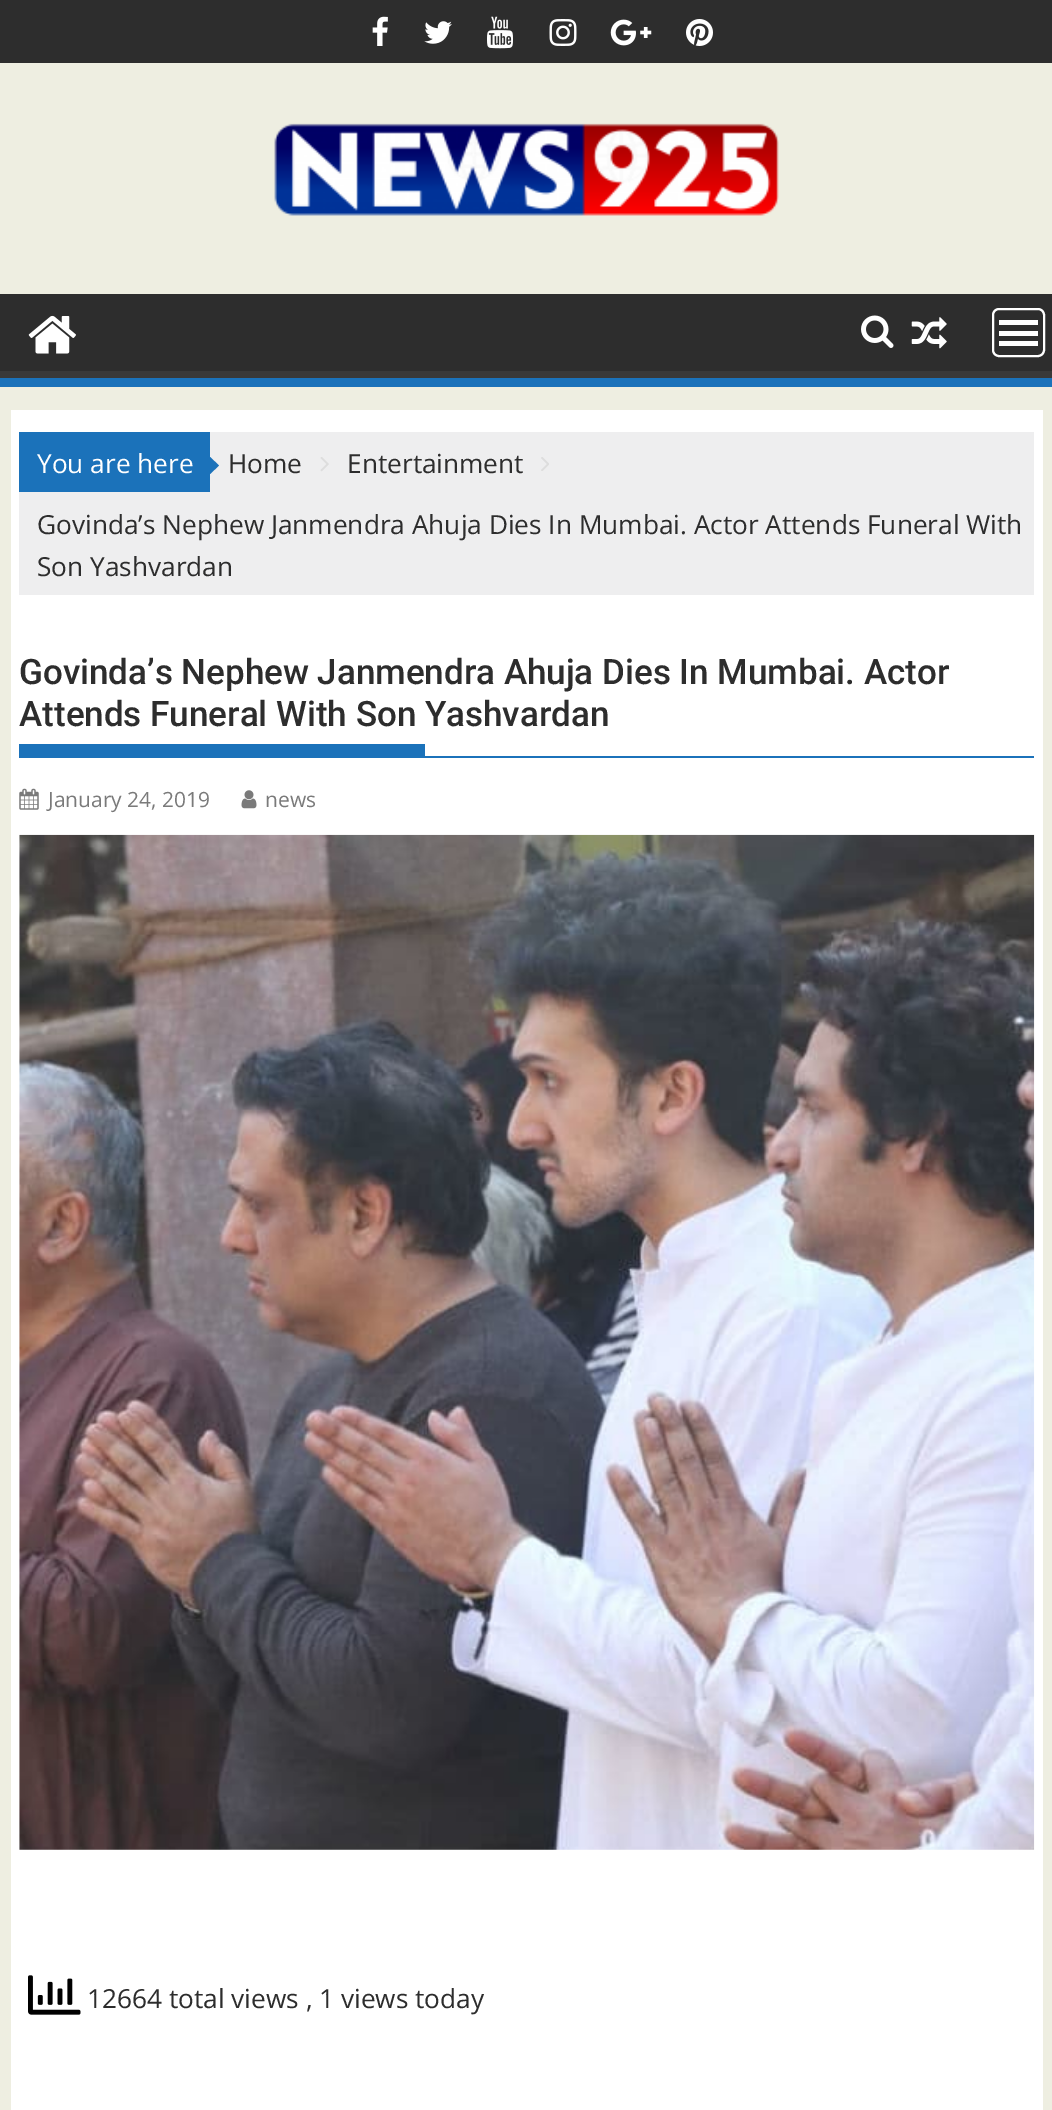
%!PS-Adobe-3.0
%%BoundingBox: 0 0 1052 2110
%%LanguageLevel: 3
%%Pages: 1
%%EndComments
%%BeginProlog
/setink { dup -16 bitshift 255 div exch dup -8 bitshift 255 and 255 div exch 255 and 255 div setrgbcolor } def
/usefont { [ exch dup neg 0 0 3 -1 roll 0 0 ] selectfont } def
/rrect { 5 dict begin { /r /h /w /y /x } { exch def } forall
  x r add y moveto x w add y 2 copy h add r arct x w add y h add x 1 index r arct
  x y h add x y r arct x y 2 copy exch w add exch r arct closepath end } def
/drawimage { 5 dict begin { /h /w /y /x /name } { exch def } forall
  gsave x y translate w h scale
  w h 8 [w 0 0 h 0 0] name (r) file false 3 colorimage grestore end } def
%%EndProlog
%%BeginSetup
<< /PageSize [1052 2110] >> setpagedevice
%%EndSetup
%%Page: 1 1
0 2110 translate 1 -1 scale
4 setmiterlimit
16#EEEEE1 setink
0 0 1052 2110 rectfill
16#2D2D2D setink
0 0 1052 63 rectfill
(img1.raw) 372 16 16 30 drawimage
(img2.raw) 424 21 28 23 drawimage
(img3.raw) 487 16 26 33 drawimage
(img4.raw) 549 19 28 27 drawimage
(img5.raw) 610 19 42 27 drawimage
(img6.raw) 686 19 27 27 drawimage
(img7.raw) 274 123 505 93 drawimage
0 294 1052 77 rectfill
gsave
0 294 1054 84 rectclip
16#393939 setink
-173 121 moveto 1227 121 lineto 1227 551 lineto -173 551 lineto closepath -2 284 moveto 1052 284 lineto 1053 284 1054 284 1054 285 curveto 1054 369 lineto 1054 370 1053 371 1052 371 curveto -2 371 lineto -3 371 -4 370 -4 369 curveto -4 285 lineto -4 284 -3 284 -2 284 curveto closepath eofill
grestore
16#1B72BA setink
0 378 1052 9 rectfill
(img8.raw) 28 315 48 39 drawimage
(img9.raw) 861 315 33 33 drawimage
(img10.raw) 911 317 36 32 drawimage
16#FFFFFF setink
2 setlinewidth
993 309 51 47 6 rrect stroke
[
    [999 341 39 5 16#FFFFFF]
    [999 331 39 5 16#FFFFFF]
    [999 320 39 5 16#FFFFFF]
    [11 410 1032 1700 16#FFFFFF]
    [19 432 1015 163 16#EEEEEF]
    [19 432 191 60 16#1B72BA]
] { aload pop setink rectfill } forall
/OpenSans-Regular 26.25 usefont
16#FFFFFF setink
37 473 moveto (You are here) show
16#1B72BA setink
210 474 moveto 210 457 lineto 219 465.5 lineto closepath fill
16#2D2D2D setink
228 473 moveto (Home) show
(img11.raw) 320 457 9 15 drawimage
347 473 moveto (Entertainment) show
(img12.raw) 541 457 8 14 drawimage
37 534 moveto (Govinda’s Nephew Janmendra Ahuja Dies In Mumbai. Actor Attends Funeral With) show
37 576 moveto (Son Yashvardan) show
16#1B72BA setink
19 756 1015 2 rectfill
/Roboto-Medium 35 usefont
16#2D2D2D setink
19 684 moveto (Govinda’s Nephew Janmendra Ahuja Dies In Mumbai. Actor) show
19 726 moveto (Attends Funeral With Son Yashvardan) show
16#1B72BA setink
19 744 406 12 rectfill
(img13.raw) 19 788 20 22 drawimage
/OpenSans-Regular 21 usefont
16#7A7A7A setink
48 807 moveto (January 24, 2019) show
(img14.raw) 241 790 16 19 drawimage
265 807 moveto (news) show
(img15.raw) 19 834 1016 1016 drawimage
(img16.raw) 28 1975 53 40 drawimage
/OpenSans-Regular 26.25 usefont
16#2D2D2D setink
87 2008 moveto (12664 total views , 1 views today) show
showpage
%%EOF
